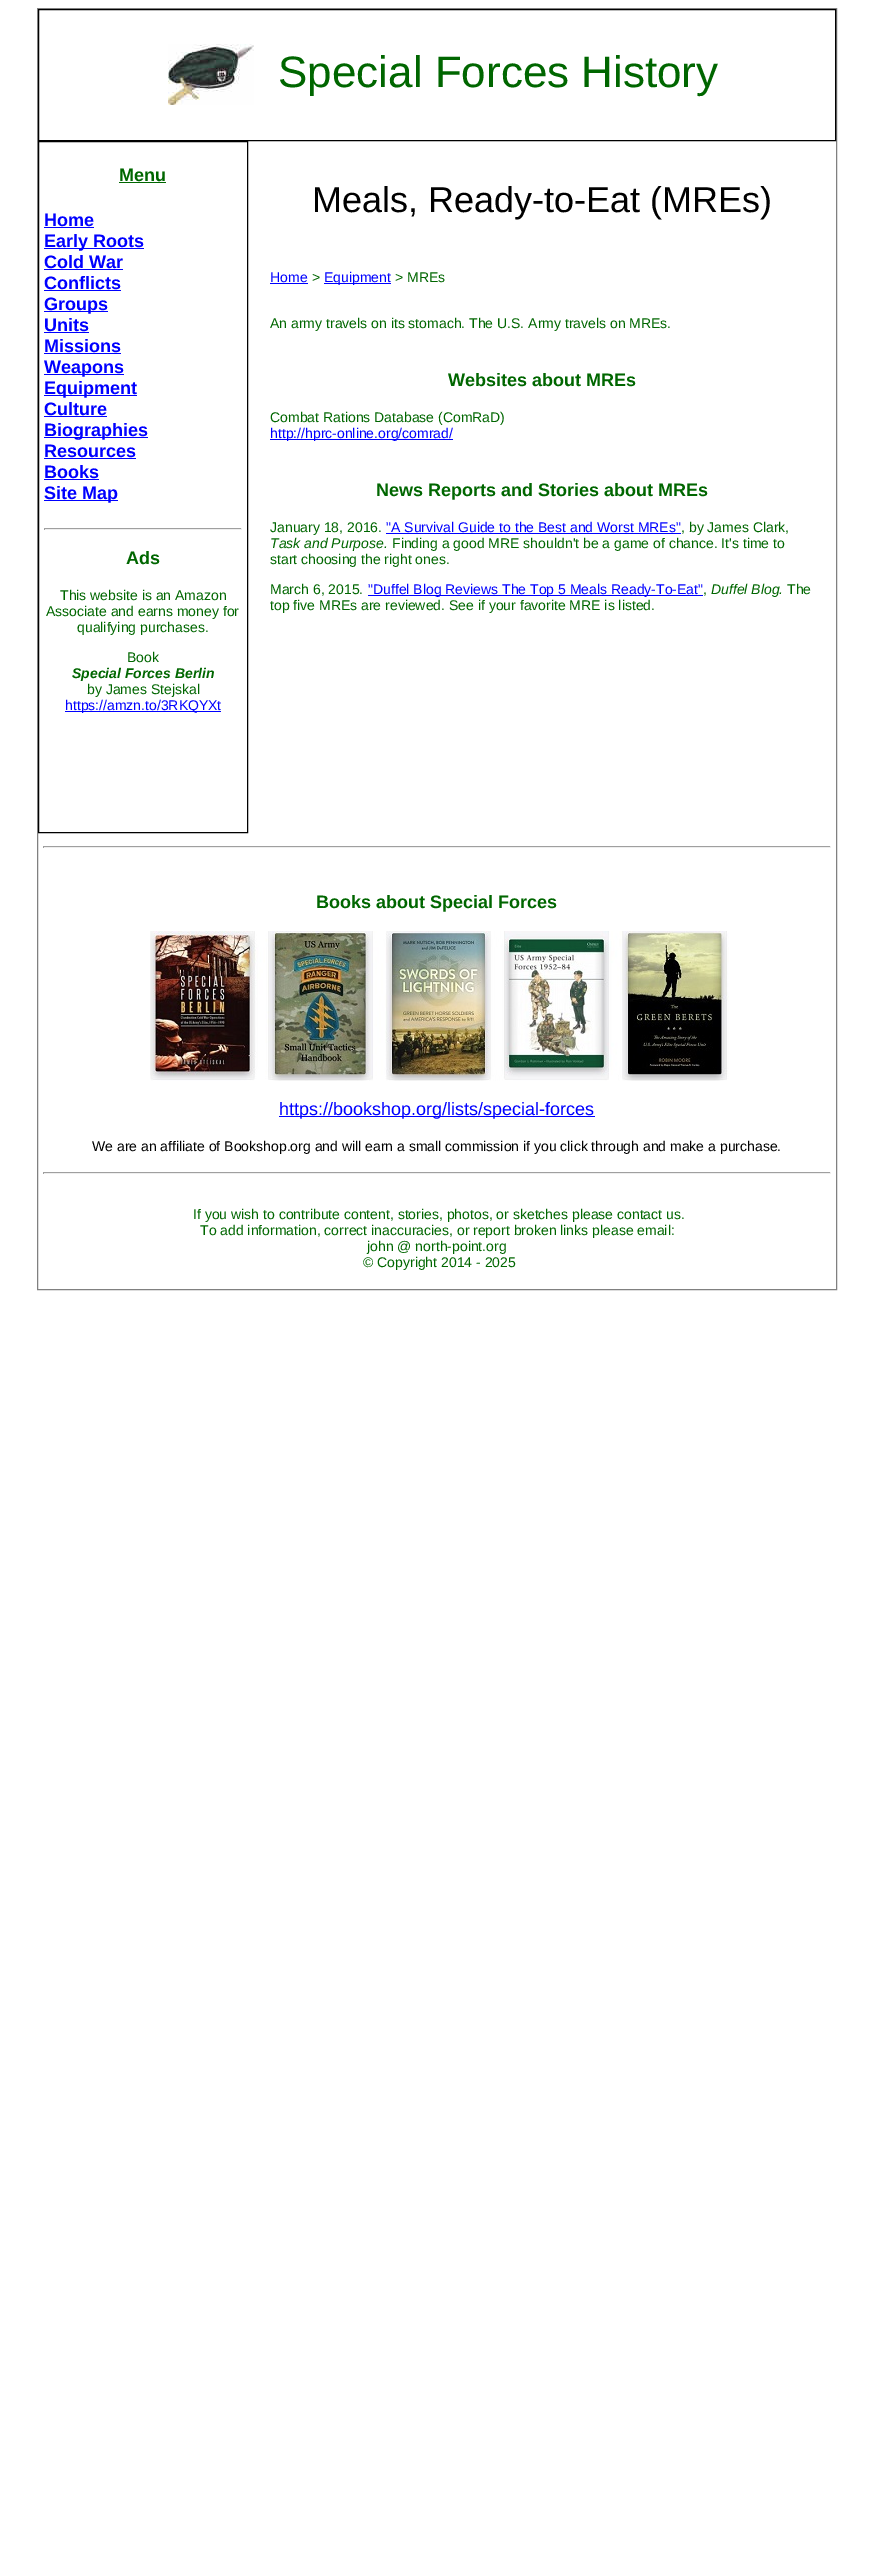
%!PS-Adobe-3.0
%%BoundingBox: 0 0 874 2549
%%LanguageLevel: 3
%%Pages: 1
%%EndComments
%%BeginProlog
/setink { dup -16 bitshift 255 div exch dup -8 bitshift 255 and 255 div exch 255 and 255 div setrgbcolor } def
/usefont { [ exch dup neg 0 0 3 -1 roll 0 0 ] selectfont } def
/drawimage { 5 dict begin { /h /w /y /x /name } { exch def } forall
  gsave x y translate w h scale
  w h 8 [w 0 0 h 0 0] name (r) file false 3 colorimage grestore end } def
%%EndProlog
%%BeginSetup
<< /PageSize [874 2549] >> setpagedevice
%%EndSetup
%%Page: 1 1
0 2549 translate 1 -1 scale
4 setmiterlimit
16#FFFFFF setink
0 0 874 2549 rectfill
16#808080 setink
37.5 8.5 799 1281 rectstroke
16#000000 setink
38.5 9.5 797 131 rectstroke
(img1.raw) 168 44 86 61 drawimage
/LiberationSans-Regular 44 usefont
16#006600 setink
278 87 moveto (Special Forces History) show
16#000000 setink
38.5 141.5 209 691 rectstroke
/LiberationSans-Bold 18 usefont
16#006600 setink
119 181 moveto (Menu) show
119 182 47 1 rectfill
16#0000FF setink
44 226 moveto (Home) show
44 227 50 1 rectfill
44 248 100 1 rectfill
44 247 moveto (Early Roots) show
44 268 moveto (Cold War) show
44 269 79 1 rectfill
44 289 moveto (Conflicts) show
44 290 77 1 rectfill
44 311 64 1 rectfill
44 310 moveto (Groups) show
44 331 moveto (Units) show
44 332 45 1 rectfill
44 352 moveto (Missions) show
44 353 77 1 rectfill
44 374 80 1 rectfill
44 373 moveto (Weapons) show
44 395 93 1 rectfill
44 394 moveto (Equipment) show
44 415 moveto (Culture) show
44 416 63 1 rectfill
44 437 104 1 rectfill
44 436 moveto (Biographies) show
44 457 moveto (Resources) show
44 458 92 1 rectfill
44 478 moveto (Books) show
44 479 55 1 rectfill
44 500 74 1 rectfill
44 499 moveto (Site Map) show
[
    [44 528 198 1 16#9F9F9F]
    [241 528 1 2 16#EEEEEE]
    [44 529 198 1 16#EEEEEE]
    [44 528 1 2 16#9F9F9F]
] { aload pop setink rectfill } forall
16#006600 setink
126 564 moveto (Ads) show
/LiberationSans-Regular 14 usefont
[
    [(This website is an Amazon) 60 600]
    [(Associate and earns money for) 46 616]
    [(qualifying purchases.) 77 632]
    [(Book) 127 662]
] { aload pop moveto show } forall
/LiberationSans-BoldItalic 14 usefont
72 678 moveto (Special Forces Berlin) show
/LiberationSans-Regular 14 usefont
87 694 moveto (by James Stejskal) show
16#0000FF setink
65 711 156 1 rectfill
65 710 moveto (https://amzn.to/3RKQYXt) show
/LiberationSans-Regular 36 usefont
16#000000 setink
312 212 moveto (Meals, Ready-to-Eat \(MREs\)) show
/LiberationSans-Regular 14 usefont
16#0000FF setink
270 282 moveto (Home) show
270 283 38 1 rectfill
16#006600 setink
312 282 moveto (>) show
16#0000FF setink
324 283 67 1 rectfill
324 282 moveto (Equipment) show
16#006600 setink
395 282 moveto (> MREs) show
270 328 moveto (An army travels on its stomach. The U.S. Army travels on MREs.) show
/LiberationSans-Bold 18 usefont
448 386 moveto (Websites about MREs) show
/LiberationSans-Regular 14 usefont
270 422 moveto (Combat Rations Database \(ComRaD\)) show
16#0000FF setink
270 439 183 1 rectfill
270 438 moveto (http://hprc-online.org/comrad/) show
/LiberationSans-Bold 18 usefont
16#006600 setink
376 496 moveto (News Reports and Stories about MREs) show
/LiberationSans-Regular 14 usefont
270 532 moveto (January 18, 2016.) show
16#0000FF setink
386 532 moveto ("A Survival Guide to the Best and Worst MREs") show
386 533 295 1 rectfill
16#006600 setink
681 532 moveto (, by James Clark,) show
/LiberationSans-Italic 14 usefont
270 548 moveto (Task and Purpose.) show
/LiberationSans-Regular 14 usefont
[
    [(Finding a good MRE shouldn't be a game of chance. It's time to) 392 548]
    [(start choosing the right ones.) 270 564]
    [(March 6, 2015.) 270 594]
] { aload pop moveto show } forall
16#0000FF setink
368 595 335 1 rectfill
368 594 moveto ("Duffel Blog Reviews The Top 5 Meals Ready-To-Eat") show
16#006600 setink
703 594 moveto (,) show
/LiberationSans-Italic 14 usefont
711 594 moveto (Duffel Blog.) show
/LiberationSans-Regular 14 usefont
787 594 moveto (The) show
270 610 moveto (top five MREs are reviewed. See if your favorite MRE is listed.) show
[
    [43 846 788 1 16#9F9F9F]
    [830 846 1 2 16#EEEEEE]
    [43 847 788 1 16#EEEEEE]
    [43 846 1 2 16#9F9F9F]
] { aload pop setink rectfill } forall
/LiberationSans-Bold 18 usefont
16#006600 setink
316 908 moveto (Books about Special Forces) show
(img2.raw) 150 931 579 150 drawimage
16#0000FF setink
279 1116 316 1 rectfill
/LiberationSans-Regular 18 usefont
279 1115 moveto (https://bookshop.org/lists/special-forces) show
/LiberationSans-Regular 14 usefont
16#000000 setink
92 1151 moveto (We are an affiliate of Bookshop.org and will earn a small commission if you click through and make a purchase.) show
[
    [43 1172 788 1 16#9F9F9F]
    [830 1172 1 2 16#EEEEEE]
    [43 1173 788 1 16#EEEEEE]
    [43 1172 1 2 16#9F9F9F]
] { aload pop setink rectfill } forall
16#006600 setink
[
    [(If you wish to contribute content, stories, photos, or sketches please contact us.) 193 1219]
    [(To add information, correct inaccuracies, or report broken links please email:) 200 1235]
    [(john @ north-point.org) 367 1251]
    [(© Copyright 2014 - 2025) 363 1267]
] { aload pop moveto show } forall
showpage
%%EOF
